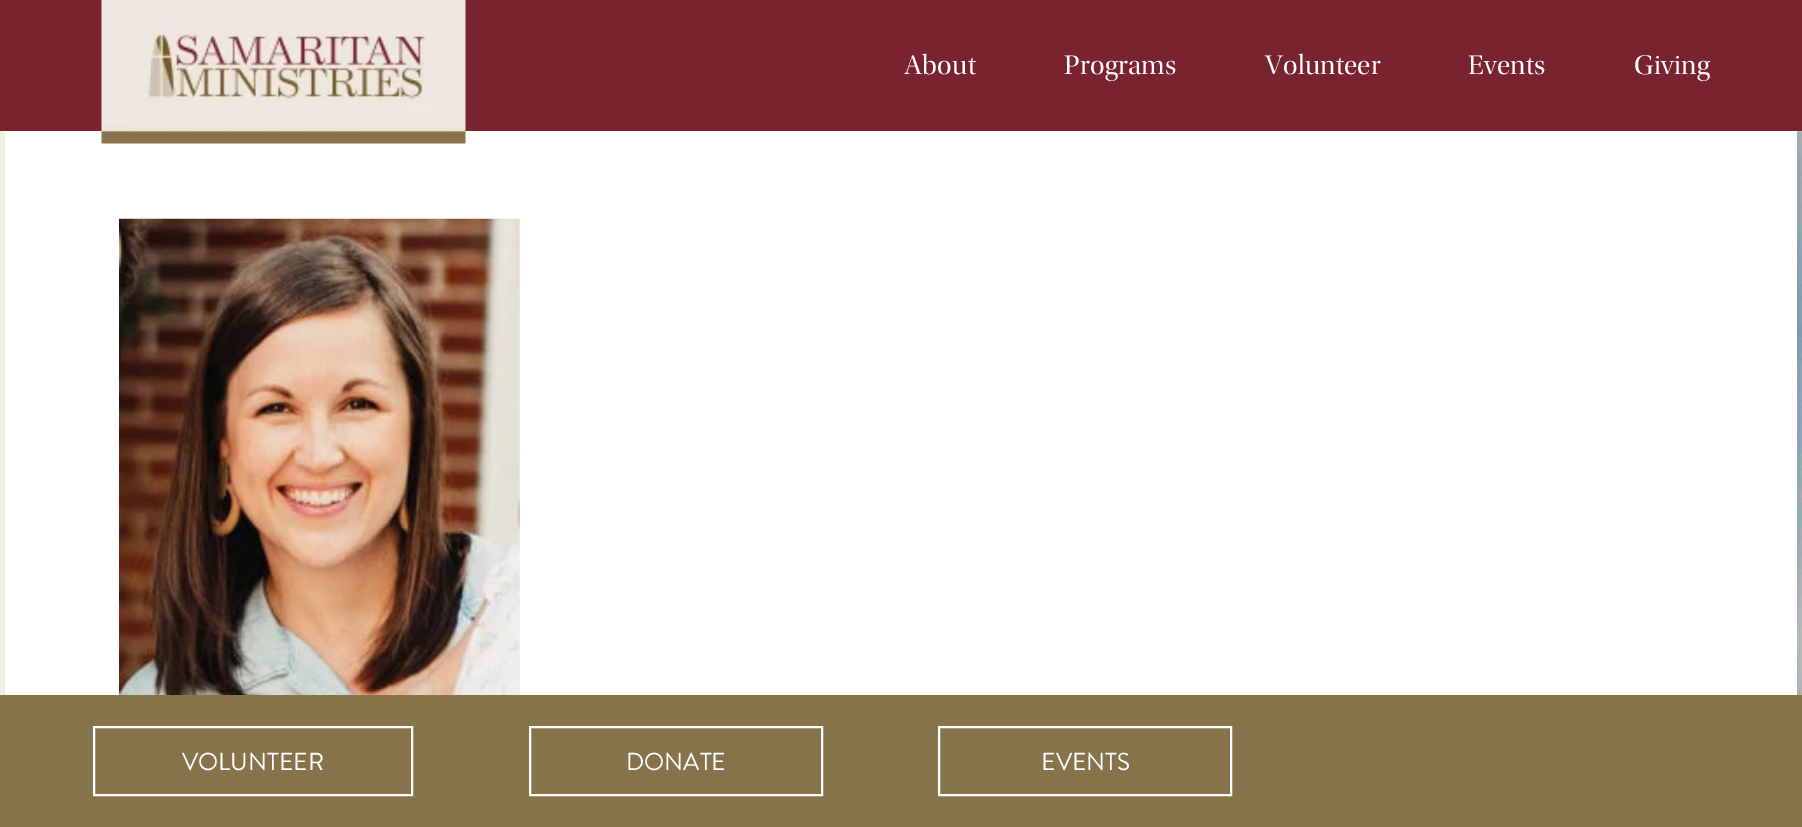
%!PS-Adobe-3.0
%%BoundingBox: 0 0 1802 827
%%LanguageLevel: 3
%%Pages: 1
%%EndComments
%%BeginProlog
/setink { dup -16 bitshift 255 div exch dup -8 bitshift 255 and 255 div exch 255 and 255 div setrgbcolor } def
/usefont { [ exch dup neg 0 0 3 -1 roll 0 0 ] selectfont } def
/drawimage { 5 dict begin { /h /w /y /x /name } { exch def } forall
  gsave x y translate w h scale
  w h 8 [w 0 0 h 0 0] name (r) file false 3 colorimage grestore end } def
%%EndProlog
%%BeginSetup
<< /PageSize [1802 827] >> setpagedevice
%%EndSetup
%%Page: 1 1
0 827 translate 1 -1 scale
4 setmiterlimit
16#FFFFFF setink
0 0 1802 827 rectfill
16#79232E setink
0 0 1802 131 rectfill
(img2.raw) 0 131 1802 564 drawimage
16#FFFFFF setink
5 131 1792 564 rectfill
(img1.raw) 101 0 365 144 drawimage
/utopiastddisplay-Regular 28 usefont
904 74 moveto 0.25 0 (About) ashow
1064 74 moveto 0.25 0 (Programs) ashow
1265 74 moveto 0.25 0 (Volunteer) ashow
1468 74 moveto 0.25 0 (Events) ashow
1634 74 moveto 0.25 0 (Giving) ashow
(img3.raw) 119 218 401 477 drawimage
16#877349 setink
0 695 1802 132 rectfill
16#FFFFFF setink
2 setlinewidth
94 727 318 68 rectstroke
/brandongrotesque-Regular 24.5 usefont
182 770 moveto (VOLUNTEER) show
530 727 292 68 rectstroke
626 770 moveto (DONATE) show
939 727 292 68 rectstroke
1041 770 moveto (EVENTS) show
showpage
%%EOF
